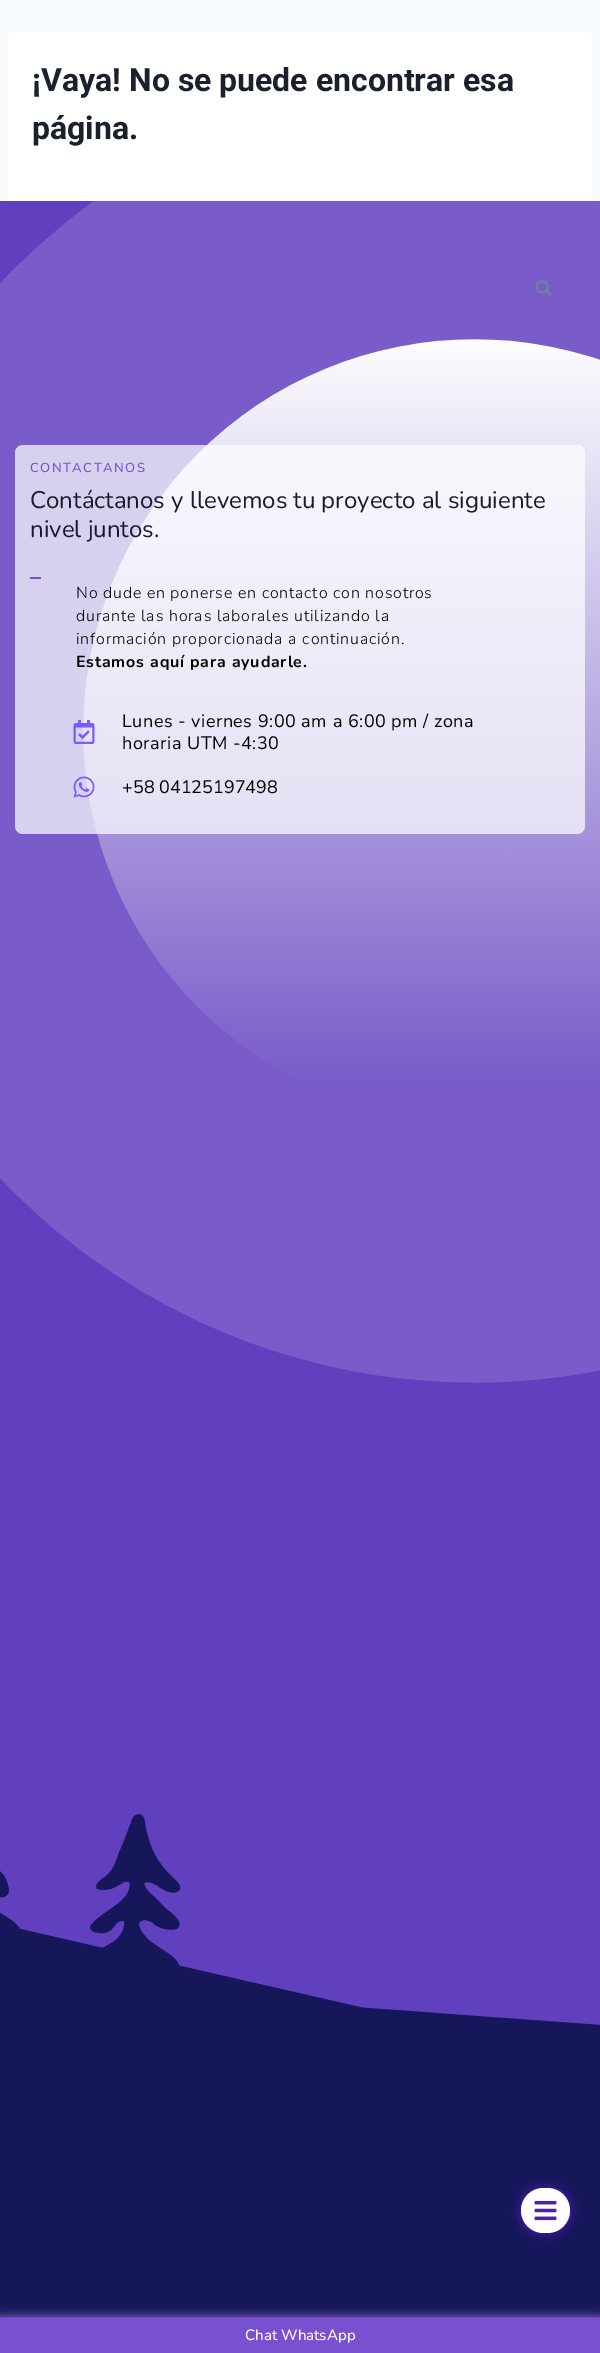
%!PS-Adobe-3.0
%%BoundingBox: 0 0 600 2353
%%LanguageLevel: 3
%%Pages: 1
%%EndComments
%%BeginProlog
/setink { dup -16 bitshift 255 div exch dup -8 bitshift 255 and 255 div exch 255 and 255 div setrgbcolor } def
/usefont { [ exch dup neg 0 0 3 -1 roll 0 0 ] selectfont } def
/setalpha { dup .setfillconstantalpha .setstrokeconstantalpha } def
/rrect { 5 dict begin { /r /h /w /y /x } { exch def } forall
  x r add y moveto x w add y 2 copy h add r arct x w add y h add x 1 index r arct
  x y h add x y r arct x y 2 copy exch w add exch r arct closepath end } def
/softshadow { 12 dict begin { /a /b /q /h /w /y /x } { exch def } forall gsave /was 0 def
  9 -2 -9 { dup b mul 4 div /e exch def 1 sub .425 mul 2.718 exch exp 1 add a .99 .min exch div /now exch def
    1 1 now sub 1 was sub div sub setalpha /was now def
    w h .min e 2 mul add 0 gt { x e sub y e sub w e 2 mul add h e 2 mul add
      q e add b .6 mul add w h .min 2 div e add .min 0 .max rrect fill } if } for grestore end } def
/drawimage { 5 dict begin { /h /w /y /x /name } { exch def } forall
  gsave x y translate w h scale
  w h 8 [w 0 0 h 0 0] name (r) file false 3 colorimage grestore end } def
%%EndProlog
%%BeginSetup
<< /PageSize [600 2353] /PageUsesTransparency true >> setpagedevice
%%EndSetup
%%Page: 1 1
0 .pushpdf14devicefilter
0 2353 translate 1 -1 scale
4 setmiterlimit
16#F7FAFC setink
0 0 600 2353 rectfill
16#FFFFFF setink
8 32 584 301 4 rrect fill
/Roboto-Bold 32 usefont
16#1A202C setink
32 91 moveto (¡Vaya! No se puede encontrar esa) show
32 139 moveto (página.) show
16#6140BF setink
0 201 600 1824 rectfill
(img2.raw) 0 201 600 1182 drawimage
(img1.raw) 535 280 17 16 drawimage
(img3.raw) 0 1814 600 504 drawimage
0.71 setalpha
16#FFFFFF setink
15 445 570 389 8 rrect fill
/Nunito-ExtraLight 13 usefont
1 setalpha
16#7851D0 setink
30 472 moveto 1.5 0 (CONTACTANOS) ashow
/Nunito-Regular 24 usefont
16#181A31 setink
30 508 moveto (Contáctanos y llevemos tu proyecto al siguiente) show
30 537 moveto (nivel juntos.) show
16#7851D0 setink
30 577 11 2 rectfill
/Nunito-Light 16 usefont
16#000000 setink
76 598 moveto 0.8 0 (No dude en ponerse en contacto con nosotros) ashow
76 621 moveto 0.8 0 (durante las horas laborales utilizando la) ashow
76 644 moveto 0.8 0 (información proporcionada a continuación.) ashow
/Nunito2-ExtraLight 16 usefont
76 667 moveto 0.8 0 (Estamos aquí para ayudarle.) ashow
(img4.raw) 73 720 22 24 drawimage
/Nunito-Regular 18 usefont
122 727 moveto 0.5 0 (Lunes - viernes 9:00 am a 6:00 pm / zona) ashow
122 749 moveto 0.5 0 (horaria UTM -4:30) ashow
(img5.raw) 73 776 22 22 drawimage
122 793 moveto (+58 04125197498) show
16#4F1FB8 setink
521 2188 49 45 22.5 5 1 softshadow
16#FFFFFF setink
521 2188 49 45 22.5 rrect fill
(img6.raw) 534 2200 23 21 drawimage
16#C38BF2 setink
0 2318 600 35 0 5 1 softshadow
16#7851D0 setink
0 2318 600 35 rectfill
/Nunito-ExtraLight 15 usefont
16#FFFFFF setink
245 2340 moveto (Chat WhatsApp) show
.poppdf14devicefilter showpage
%%EOF
